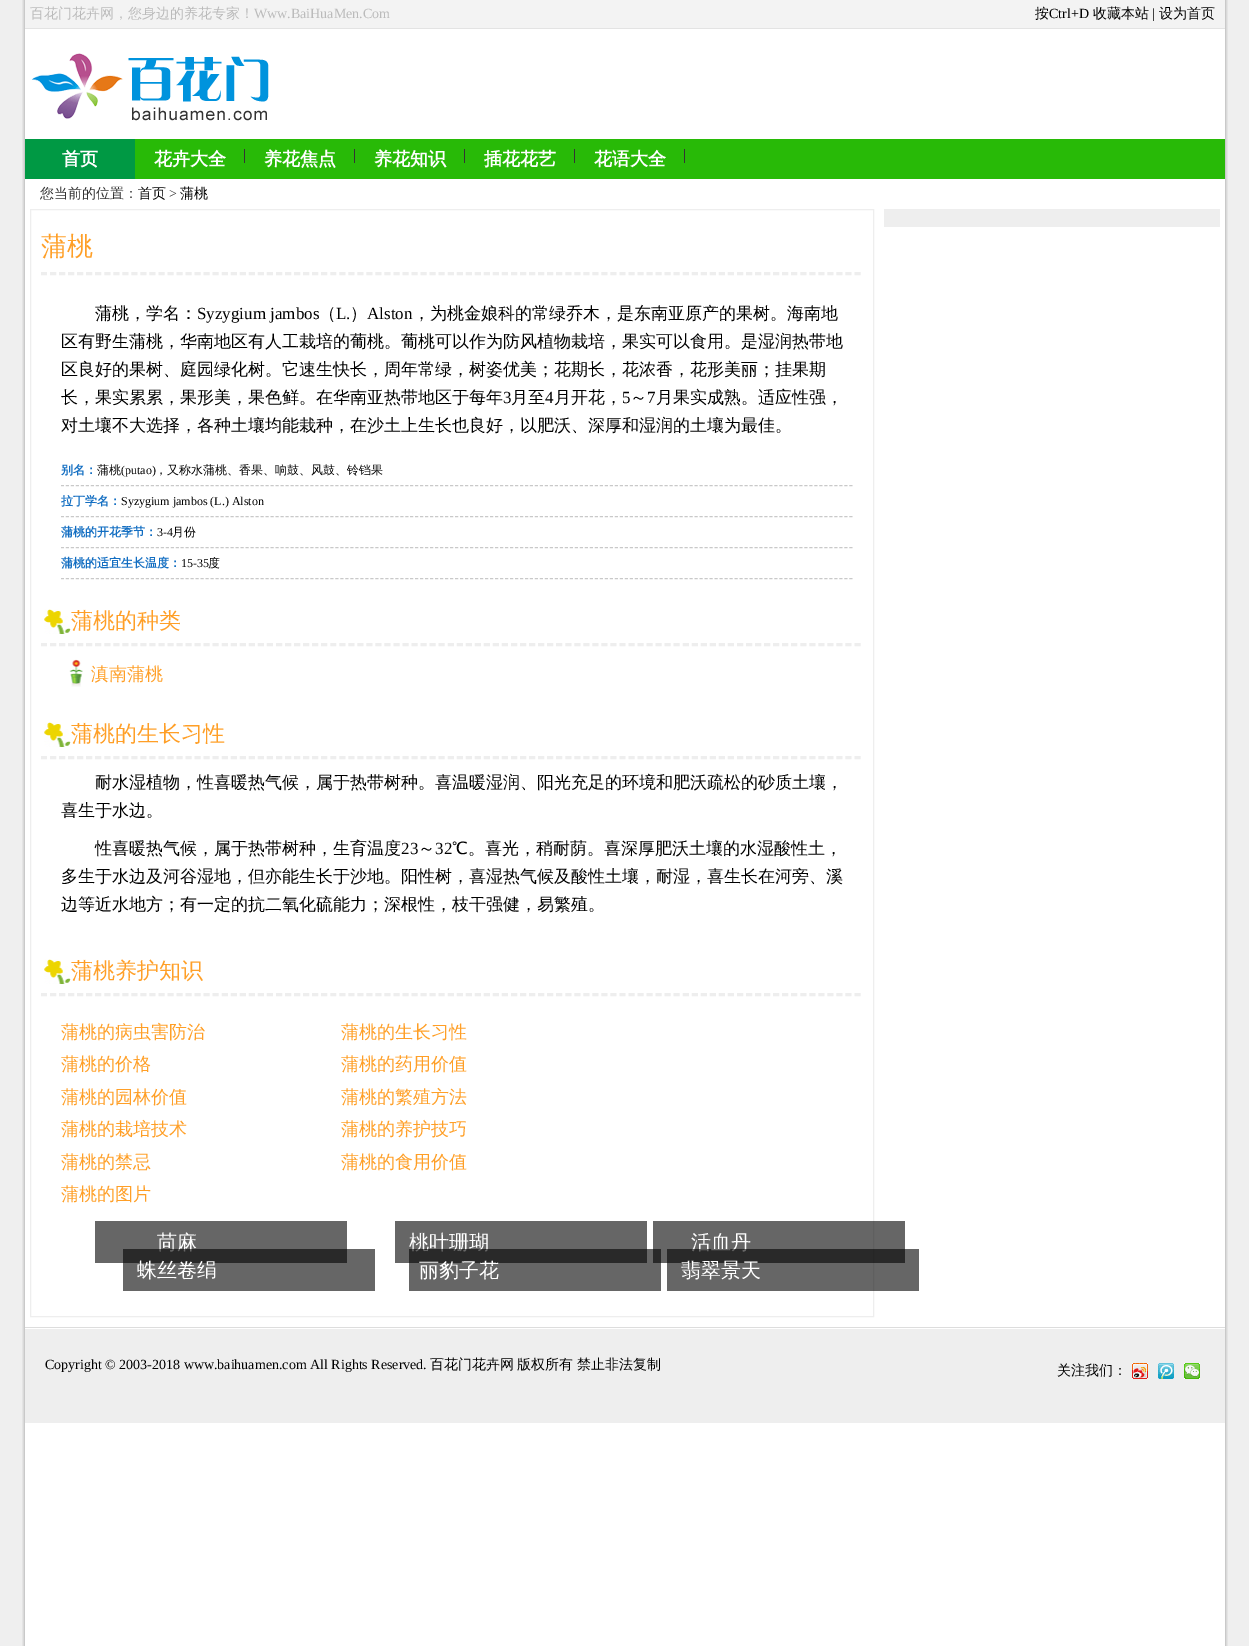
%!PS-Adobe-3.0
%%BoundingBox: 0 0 1249 1646
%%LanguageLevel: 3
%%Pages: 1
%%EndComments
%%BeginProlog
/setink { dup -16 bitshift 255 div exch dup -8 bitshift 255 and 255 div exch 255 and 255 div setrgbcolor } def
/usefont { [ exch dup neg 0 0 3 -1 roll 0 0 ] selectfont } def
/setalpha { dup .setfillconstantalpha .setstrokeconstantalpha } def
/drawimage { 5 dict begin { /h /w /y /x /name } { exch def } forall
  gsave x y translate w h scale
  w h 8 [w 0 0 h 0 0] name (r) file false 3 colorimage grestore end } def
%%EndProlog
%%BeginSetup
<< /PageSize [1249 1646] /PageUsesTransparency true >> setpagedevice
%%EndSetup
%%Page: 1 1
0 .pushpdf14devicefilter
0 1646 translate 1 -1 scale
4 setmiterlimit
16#EFEFEF setink
0 0 1249 1646 rectfill
(img1.raw) 22 0 1206 1646 drawimage
16#F3F3F3 setink
25 0 1200 28 rectfill
16#E3E3E3 setink
25 28 1200 1 rectfill
/WenQuanYiZenHei-Medium 14 usefont
16#BBBBBB setink
30 18 moveto (百花门花卉网，您身边的养花专家！) show
/LiberationSerif-Regular 14 usefont
254 18 moveto (Www.BaiHuaMen.Com) show
/WenQuanYiZenHei-Medium 14 usefont
16#000000 setink
1035 18 moveto (按) show
/LiberationSerif-Regular 14 usefont
1049 18 moveto (Ctrl+D) show
/WenQuanYiZenHei-Medium 14 usefont
1093 18 moveto (收藏本站) show
/LiberationSerif-Regular 14 usefont
1152 18 moveto (|) show
/WenQuanYiZenHei-Medium 14 usefont
1159 18 moveto (设为首页) show
(img2.raw) 31 53 238 68 drawimage
16#28BA07 setink
135 139 1090 40 rectfill
16#009944 setink
25 139 110 40 rectfill
/WenQuanYiZenHei-Bold 18 usefont
16#FFFFFF setink
62 165 moveto (首页) show
16#343434 setink
244 149 1 14 rectfill
16#FFFFFF setink
154 165 moveto (花卉大全) show
16#343434 setink
354 149 1 14 rectfill
16#FFFFFF setink
264 165 moveto (养花焦点) show
16#343434 setink
464 149 1 14 rectfill
16#FFFFFF setink
374 165 moveto (养花知识) show
16#343434 setink
574 149 1 14 rectfill
16#FFFFFF setink
484 165 moveto (插花花艺) show
16#343434 setink
684 149 1 14 rectfill
16#FFFFFF setink
594 165 moveto (花语大全) show
/WenQuanYiZenHei-Medium 14 usefont
16#333333 setink
40 198 moveto (您当前的位置：) show
16#000000 setink
138 198 moveto (首页) show
/LiberationSerif-Regular 14 usefont
16#333333 setink
169 198 moveto (>) show
/WenQuanYiZenHei-Medium 14 usefont
16#000000 setink
180 198 moveto (蒲桃) show
16#EEEEEE setink
884 209 336 18 rectfill
30.5 209.5 843 1107 rectstroke
3 setlinewidth
[6 3.04] 0 setdash
41 273.5 moveto 861 273.5 lineto stroke
/WenQuanYiZenHei-Medium 26 usefont
16#FF9F27 setink
41 255 moveto (蒲桃) show
/WenQuanYiZenHei-Medium 17 usefont
16#000000 setink
95 319 moveto (蒲桃，学名：) show
/LiberationSerif-Regular 17 usefont
197 319 moveto (Syzygium jambos) show
/WenQuanYiZenHei-Medium 17 usefont
319 319 moveto (（) show
/LiberationSerif-Regular 17 usefont
336 319 moveto (L.) show
/WenQuanYiZenHei-Medium 17 usefont
350 319 moveto (）) show
/LiberationSerif-Regular 17 usefont
367 319 moveto (Alston) show
/WenQuanYiZenHei-Medium 17 usefont
[
    [(，为桃金娘科的常绿乔木，是东南亚原产的果树。海南地) 413 319]
    [(区有野生蒲桃，华南地区有人工栽培的葡桃。葡桃可以作为防风植物栽培，果实可以食用。是湿润热带地) 61 347]
    [(区良好的果树、庭园绿化树。它速生快长，周年常绿，树姿优美；花期长，花浓香，花形美丽；挂果期) 61 375]
    [(长，果实累累，果形美，果色鲜。在华南亚热带地区于每年) 61 403]
] { aload pop moveto show } forall
/LiberationSerif-Regular 17 usefont
503 403 moveto (3) show
/WenQuanYiZenHei-Medium 17 usefont
511 403 moveto (月至) show
/LiberationSerif-Regular 17 usefont
545 403 moveto (4) show
/WenQuanYiZenHei-Medium 17 usefont
554 403 moveto (月开花，) show
/LiberationSerif-Regular 17 usefont
622 403 moveto (5) show
/WenQuanYiZenHei-Medium 17 usefont
630 403 moveto (～) show
/LiberationSerif-Regular 17 usefont
647 403 moveto (7) show
/WenQuanYiZenHei-Medium 17 usefont
656 403 moveto (月果实成熟。适应性强，) show
61 431 moveto (对土壤不大选择，各种土壤均能栽种，在沙土上生长也良好，以肥沃、深厚和湿润的土壤为最佳。) show
16#C9C9C9 setink
1 setlinewidth
[3 1.99] 0 setdash
61 485.5 moveto 853 485.5 lineto stroke
/WenQuanYiZenHei-Bold 12 usefont
16#136EC2 setink
61 474 moveto (别名：) show
/WenQuanYiZenHei-Medium 12 usefont
16#000000 setink
97 474 moveto (蒲桃) show
/LiberationSerif-Regular 12 usefont
121 474 moveto (\(putao\)) show
/WenQuanYiZenHei-Medium 12 usefont
155 474 moveto (，又称水蒲桃、香果、响鼓、风鼓、铃铛果) show
16#C9C9C9 setink
61 516.5 moveto 853 516.5 lineto stroke
/WenQuanYiZenHei-Bold 12 usefont
16#136EC2 setink
61 505 moveto (拉丁学名：) show
/LiberationSerif-Regular 12 usefont
16#000000 setink
121 505 moveto (Syzygium jambos \(L.\) Alston) show
16#C9C9C9 setink
61 547.5 moveto 853 547.5 lineto stroke
/WenQuanYiZenHei-Bold 12 usefont
16#136EC2 setink
61 536 moveto (蒲桃的开花季节：) show
/LiberationSerif-Regular 12 usefont
16#000000 setink
157 536 moveto (3-4) show
/WenQuanYiZenHei-Medium 12 usefont
172 536 moveto (月份) show
16#C9C9C9 setink
61 578.5 moveto 853 578.5 lineto stroke
/WenQuanYiZenHei-Bold 12 usefont
16#136EC2 setink
61 567 moveto (蒲桃的适宜生长温度：) show
/LiberationSerif-Regular 12 usefont
16#000000 setink
181 567 moveto (15-35) show
/WenQuanYiZenHei-Medium 12 usefont
208 567 moveto (度) show
(img3.raw) 44 609 27 25 drawimage
16#EEEEEE setink
3 setlinewidth
[6 3.04] 0 setdash
41 644.5 moveto 861 644.5 lineto stroke
/WenQuanYiZenHei-Medium 22 usefont
16#FF9F27 setink
71 628 moveto (蒲桃的种类) show
(img4.raw) 69 659 14 28 drawimage
/WenQuanYiZenHei-Medium 18 usefont
91 680 moveto (滇南蒲桃) show
(img3.raw) 44 722 27 25 drawimage
16#EEEEEE setink
41 757.5 moveto 861 757.5 lineto stroke
/WenQuanYiZenHei-Medium 22 usefont
16#FF9F27 setink
71 741 moveto (蒲桃的生长习性) show
/WenQuanYiZenHei-Medium 17 usefont
16#000000 setink
[
    [(耐水湿植物，性喜暖热气候，属于热带树种。喜温暖湿润、阳光充足的环境和肥沃疏松的砂质土壤，) 95 788]
    [(喜生于水边。) 61 816]
    [(性喜暖热气候，属于热带树种，生育温度) 95 854]
] { aload pop moveto show } forall
/LiberationSerif-Regular 17 usefont
401 854 moveto (23) show
/WenQuanYiZenHei-Medium 17 usefont
418 854 moveto (～) show
/LiberationSerif-Regular 17 usefont
435 854 moveto (32) show
/WenQuanYiZenHei-Medium 17 usefont
[
    [(℃。喜光，稍耐荫。喜深厚肥沃土壤的水湿酸性土，) 452 854]
    [(多生于水边及河谷湿地，但亦能生长于沙地。阳性树，喜湿热气候及酸性土壤，耐湿，喜生长在河旁、溪) 61 882]
    [(边等近水地方；有一定的抗二氧化硫能力；深根性，枝干强健，易繁殖。) 61 910]
] { aload pop moveto show } forall
(img3.raw) 44 959 27 25 drawimage
16#EEEEEE setink
41 994.5 moveto 861 994.5 lineto stroke
/WenQuanYiZenHei-Medium 22 usefont
16#FF9F27 setink
71 978 moveto (蒲桃养护知识) show
/WenQuanYiZenHei-Medium 18 usefont
[
    [(蒲桃的病虫害防治) 61 1038]
    [(蒲桃的生长习性) 341 1038]
    [(蒲桃的价格) 61 1070]
    [(蒲桃的药用价值) 341 1070]
    [(蒲桃的园林价值) 61 1103]
    [(蒲桃的繁殖方法) 341 1103]
    [(蒲桃的栽培技术) 61 1135]
    [(蒲桃的养护技巧) 341 1135]
    [(蒲桃的禁忌) 61 1168]
    [(蒲桃的食用价值) 341 1168]
    [(蒲桃的图片) 61 1200]
] { aload pop moveto show } forall
16#666666 setink
95 1221 252 42 rectfill
/WenQuanYiZenHei-Medium 20 usefont
16#FFFFFF setink
157 1249 moveto (苘麻) show
16#666666 setink
395 1221 252 42 rectfill
16#FFFFFF setink
409 1249 moveto (桃叶珊瑚) show
0.6 setalpha
16#000000 setink
653 1221 252 42 rectfill
1 setalpha
16#FFFFFF setink
691 1249 moveto (活血丹) show
0.6 setalpha
16#000000 setink
123 1249 252 42 rectfill
1 setalpha
16#FFFFFF setink
137 1277 moveto (蛛丝卷绢) show
0.6 setalpha
16#000000 setink
409 1249 252 42 rectfill
1 setalpha
16#FFFFFF setink
419 1277 moveto (丽豹子花) show
0.6 setalpha
16#000000 setink
667 1249 252 42 rectfill
1 setalpha
16#FFFFFF setink
681 1277 moveto (翡翠景天) show
16#EEEEEE setink
25 1329 1200 94 rectfill
16#DDDDDD setink
25 1327 1200 1 rectfill
/LiberationSerif-Regular 14 usefont
16#000000 setink
45 1369 moveto (Copyright © 2003-2018 www.baihuamen.com All Rights Reserved.) show
/WenQuanYiZenHei-Medium 14 usefont
[
    [(百花门花卉网) 430 1369]
    [(版权所有) 517 1369]
    [(禁止非法复制) 577 1369]
    [(关注我们：) 1057 1375]
] { aload pop moveto show } forall
(img5.raw) 1132 1363 16 16 drawimage
(img6.raw) 1158 1363 16 16 drawimage
(img7.raw) 1184 1363 16 16 drawimage
.poppdf14devicefilter showpage
%%EOF
